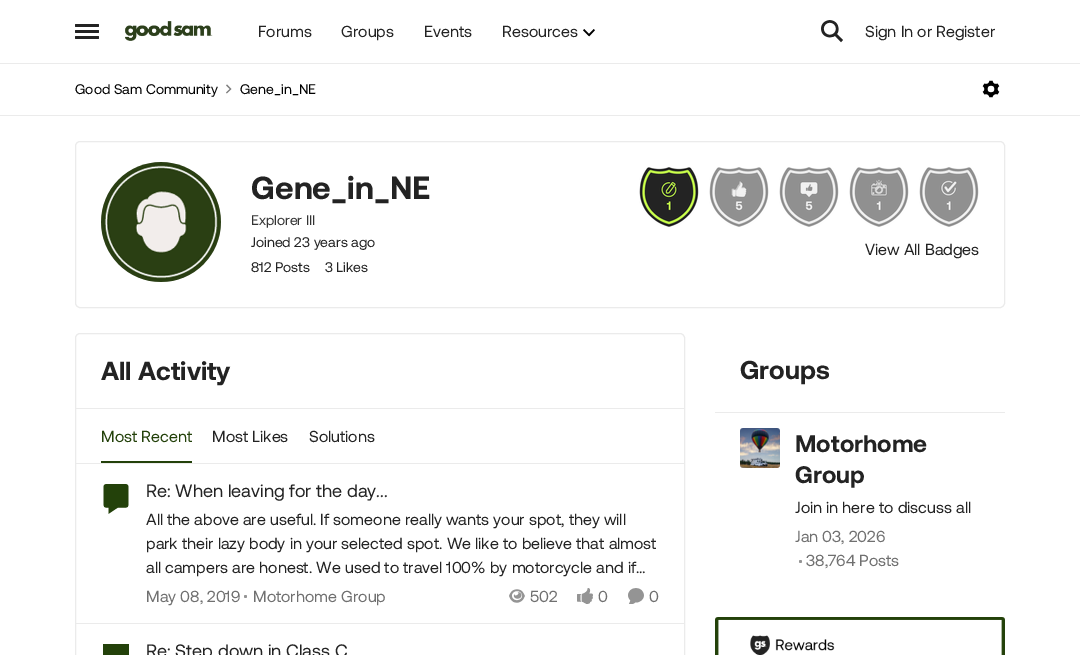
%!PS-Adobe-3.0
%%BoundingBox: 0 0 1080 655
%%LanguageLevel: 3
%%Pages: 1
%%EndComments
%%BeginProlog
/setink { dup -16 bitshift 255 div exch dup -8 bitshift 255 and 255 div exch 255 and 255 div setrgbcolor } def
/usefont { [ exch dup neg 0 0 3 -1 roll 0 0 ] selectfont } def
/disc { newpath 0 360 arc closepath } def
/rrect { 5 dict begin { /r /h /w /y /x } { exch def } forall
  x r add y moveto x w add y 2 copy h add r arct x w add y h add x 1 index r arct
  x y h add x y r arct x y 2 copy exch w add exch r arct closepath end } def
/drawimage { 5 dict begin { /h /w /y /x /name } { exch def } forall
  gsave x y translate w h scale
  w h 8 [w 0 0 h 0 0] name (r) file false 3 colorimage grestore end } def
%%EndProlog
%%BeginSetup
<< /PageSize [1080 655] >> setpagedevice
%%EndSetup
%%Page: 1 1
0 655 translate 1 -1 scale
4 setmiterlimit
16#FFFFFF setink
0 0 1080 655 rectfill
16#EBEBEB setink
0 63 1080 1 rectfill
16#232323 setink
75 24 24 3 1 rrect fill
75 30 24 3 1 rrect fill
75 36 24 3 1 rrect fill
(img1.raw) 125 21 88 20 drawimage
/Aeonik-Regular 16 usefont
[
    [(Forums) 258 37]
    [(Groups) 341 37]
    [(Events) 424 37]
    [(Resources) 502 37]
] { aload pop moveto show } forall
(img2.raw) 583 29 12 8 drawimage
(img3.raw) 821 20 22 23 drawimage
865 37 moveto (Sign In or Register) show
16#EBEBEB setink
0 115 1080 1 rectfill
/Aeonik-Regular 14 usefont
16#000000 setink
75 94 moveto (Good Sam Community) show
(img4.raw) 226 84 6 10 drawimage
240 94 moveto (Gene_in_NE) show
(img5.raw) 982 80 18 18 drawimage
16#EBEBEB setink
75.5 141.5 929 166 4.5 rrect stroke
(img6.raw) 101 162 120 120 drawimage
/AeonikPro-Bold 32 usefont
16#232323 setink
251 199 moveto (Gene_in_NE) show
/Aeonik-Regular 14 usefont
16#333333 setink
251 225 moveto (Explorer III) show
16#232323 setink
[
    [(Joined 23 years ago) 251 247]
    [(812 Posts) 251 272]
    [(3) 325 272]
    [(Likes) 336 272]
] { aload pop moveto show } forall
(img7.raw) 639 167 60 60 drawimage
(img8.raw) 709 167 60 60 drawimage
(img9.raw) 779 167 60 60 drawimage
(img10.raw) 849 167 60 60 drawimage
(img11.raw) 919 167 60 60 drawimage
/Aeonik-Regular 16 usefont
865 255 moveto (View All Badges) show
16#EBEBEB setink
75.5 333.5 609 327 4.5 rrect stroke
76 408 608 1 rectfill
/AeonikPro-Bold 26 usefont
16#232323 setink
101 380 moveto (All Activity) show
16#EBEBEB setink
76 463 608 1 rectfill
/Aeonik-Regular 16 usefont
16#23410A setink
101 442 moveto (Most Recent) show
101 461 91 2 rectfill
16#232323 setink
212 442 moveto (Most Likes) show
309 442 moveto (Solutions) show
16#EBEBEB setink
76 623 608 1 rectfill
(img12.raw) 103 484 26 30 drawimage
/Aeonik-Regular 18 usefont
16#232323 setink
146 497 moveto (Re: When leaving for the day...) show
/Aeonik-Regular 16 usefont
[
    [(All the above are useful. If someone really wants your spot, they will) 146 525]
    [(park their lazy body in your selected spot. We like to believe that almost) 146 549]
    [(all campers are honest. We used to travel 100% by motorcycle and if…) 146 573]
] { aload pop moveto show } forall
16#707070 setink
146 602 moveto (May 08, 2019) show
16#949494 setink
245.5 596.5 1.5 disc fill
16#707070 setink
253 602 moveto (Motorhome Group) show
(img13.raw) 509 589 16 14 drawimage
530 602 moveto (502) show
(img14.raw) 577 588 16 16 drawimage
598 602 moveto (0) show
(img15.raw) 628 588 16 16 drawimage
649 602 moveto (0) show
16#23410A setink
103 644 26 11 rectfill
/Aeonik-Regular 18 usefont
16#232323 setink
146 657 moveto (Re: Step down in Class C) show
16#EBEBEB setink
715 412 290 1 rectfill
/AeonikPro-Bold 26 usefont
16#232323 setink
740 379 moveto (Groups) show
(img16.raw) 740 428 40 40 drawimage
/AeonikPro-Bold 24 usefont
795 452 moveto (Motorhome) show
795 483 moveto (Group) show
/Aeonik-Regular 16 usefont
795 513 moveto (Join in here to discuss all) show
16#707070 setink
795 542 moveto (Jan 03, 2026) show
16#949494 setink
800.5 561.5 1.5 disc fill
16#707070 setink
806 566 moveto (38,764 Posts) show
(img17.raw) 715 617 290 38 drawimage
showpage
%%EOF
